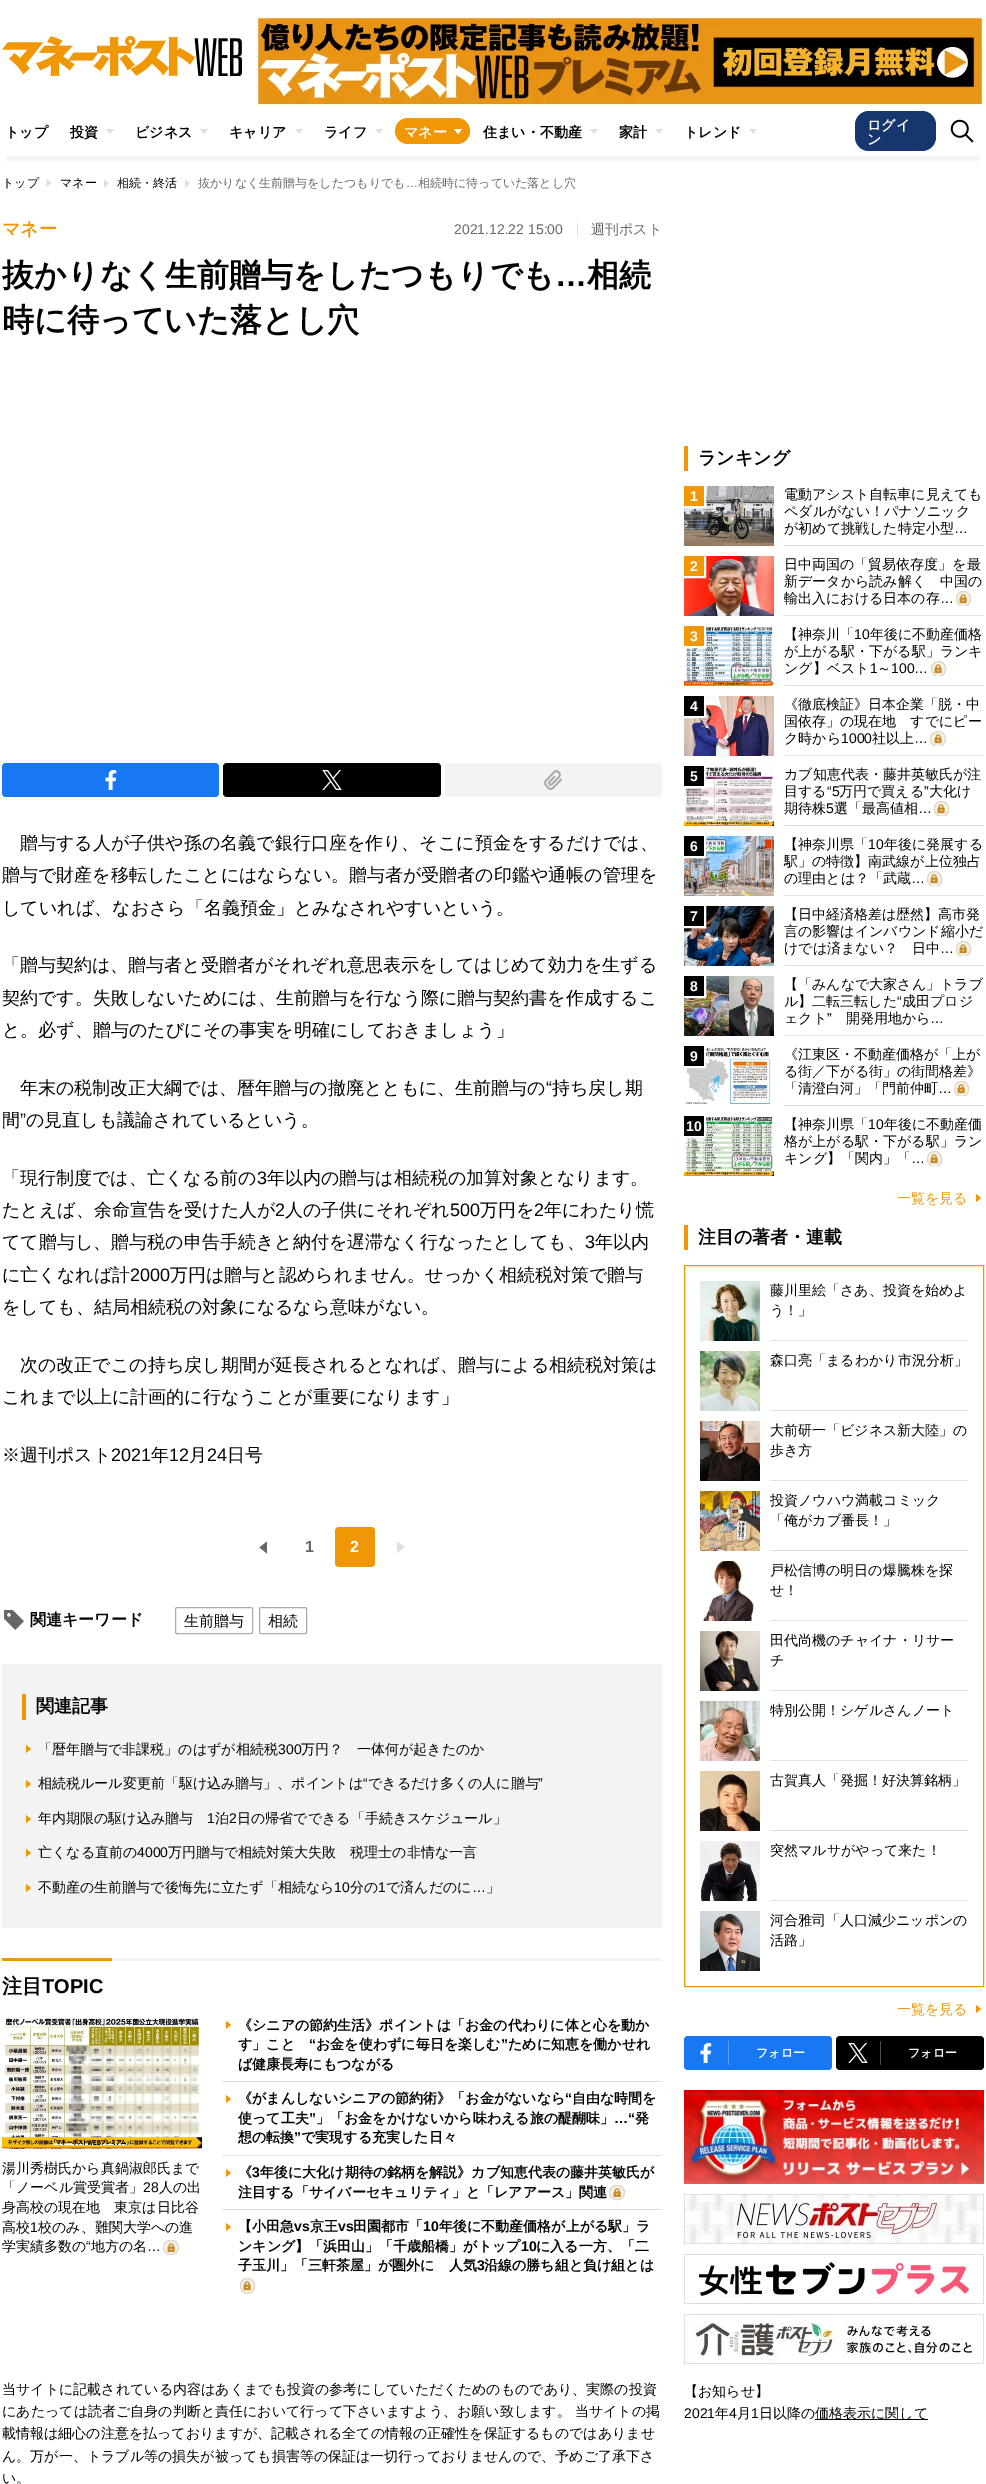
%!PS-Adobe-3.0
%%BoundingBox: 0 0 986 2484
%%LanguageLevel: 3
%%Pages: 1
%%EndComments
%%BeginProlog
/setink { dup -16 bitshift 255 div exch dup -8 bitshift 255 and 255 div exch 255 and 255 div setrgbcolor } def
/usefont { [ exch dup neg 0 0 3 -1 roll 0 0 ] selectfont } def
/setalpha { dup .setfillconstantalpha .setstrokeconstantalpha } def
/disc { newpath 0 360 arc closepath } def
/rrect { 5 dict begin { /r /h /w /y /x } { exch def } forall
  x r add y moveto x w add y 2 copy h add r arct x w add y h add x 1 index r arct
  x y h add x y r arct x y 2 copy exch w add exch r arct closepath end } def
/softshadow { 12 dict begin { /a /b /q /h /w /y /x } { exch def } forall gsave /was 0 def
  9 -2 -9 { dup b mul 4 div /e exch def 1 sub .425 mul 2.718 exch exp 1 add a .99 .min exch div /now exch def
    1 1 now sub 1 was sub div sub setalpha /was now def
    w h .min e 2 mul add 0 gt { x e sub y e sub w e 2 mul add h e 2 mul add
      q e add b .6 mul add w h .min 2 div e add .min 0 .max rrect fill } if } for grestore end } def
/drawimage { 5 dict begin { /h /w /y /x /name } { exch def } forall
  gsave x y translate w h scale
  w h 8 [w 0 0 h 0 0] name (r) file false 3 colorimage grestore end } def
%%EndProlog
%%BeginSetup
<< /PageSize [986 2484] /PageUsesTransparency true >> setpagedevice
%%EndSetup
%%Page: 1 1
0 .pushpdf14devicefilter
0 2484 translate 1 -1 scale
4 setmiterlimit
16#FFFFFF setink
0 0 986 2484 rectfill
(img1.raw) 2 36 240 40 drawimage
(img2.raw) 256 16 728 90 drawimage
gsave
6 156 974 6 rectclip
16#000000 setink
8 121 970 38 0 4.5 0.08 softshadow
grestore
/WenQuanYiZenHei-Bold 14 usefont
16#000000 setink
5 137 moveto (トップ) show
70 137 moveto (投資) show
16#E0E0E0 setink
110 134 moveto 106 129 lineto 114 129 lineto closepath fill
16#000000 setink
135 137 moveto (ビジネス) show
16#E0E0E0 setink
204 134 moveto 200 129 lineto 208 129 lineto closepath fill
16#000000 setink
229 137 moveto (キャリア) show
16#E0E0E0 setink
299 134 moveto 295 129 lineto 303 129 lineto closepath fill
16#000000 setink
324 137 moveto (ライフ) show
16#E0E0E0 setink
379 134 moveto 375 129 lineto 383 129 lineto closepath fill
16#F09705 setink
395 118 75 26 13 rrect fill
16#FFFFFF setink
404 137 moveto (マネー) show
458 134 moveto 454 129 lineto 462 129 lineto closepath fill
16#000000 setink
483 137 moveto (住まい・不動産) show
16#E0E0E0 setink
594 134 moveto 590 129 lineto 598 129 lineto closepath fill
16#000000 setink
619 137 moveto (家計) show
16#E0E0E0 setink
659 134 moveto 655 129 lineto 663 129 lineto closepath fill
16#000000 setink
684 137 moveto (トレンド) show
16#E0E0E0 setink
753 134 moveto 749 129 lineto 757 129 lineto closepath fill
16#16376D setink
855 111 81 40 14 rrect fill
16#FFFFFF setink
867 130 moveto (ログイ) show
867 144 moveto (ン) show
(img3.raw) 950 119 24 24 drawimage
/WenQuanYiZenHei-Medium 12 usefont
16#000000 setink
2 187 moveto (トップ) show
16#E0E0E0 setink
51.5 183 moveto 46.5 187 lineto 46.5 179 lineto closepath fill
16#000000 setink
60 187 moveto (マネー) show
16#E0E0E0 setink
109 183.5 moveto 104 187.5 lineto 104 179.5 lineto closepath fill
16#000000 setink
117 187 moveto (相続・終活) show
16#E0E0E0 setink
190 183.5 moveto 185 187.5 lineto 185 179.5 lineto closepath fill
16#666666 setink
198 187 moveto (抜かりなく生前贈与をしたつもりでも) show
/LiberationSans-Regular 12 usefont
406 187 moveto (…) show
/WenQuanYiZenHei-Medium 12 usefont
418 187 moveto (相続時に待っていた落とし穴) show
/WenQuanYiZenHei-Bold 18 usefont
16#F09705 setink
2 235 moveto (マネー) show
/LiberationSans-Regular 14 usefont
16#666666 setink
454 234 moveto (2021.12.22 15:00) show
16#E0E0E0 setink
577 223 1 13 rectfill
/WenQuanYiZenHei-Medium 14 usefont
16#666666 setink
591 234 moveto (週刊ポスト) show
/WenQuanYiZenHei-Bold 32 usefont
16#000000 setink
2 286 moveto (抜かりなく生前贈与をしたつもりでも) show
/LiberationSans-Bold 32 usefont
555 286 moveto (…) show
/WenQuanYiZenHei-Bold 32 usefont
587 286 moveto (相続) show
2 331 moveto (時に待っていた落とし穴) show
16#1877F2 setink
2 763 217 34 4 rrect fill
(img4.raw) 105 770 12 20 drawimage
16#000000 setink
223 763 218 34 4 rrect fill
(img5.raw) 322 770 20 20 drawimage
16#F3F3F3 setink
445 763 217 34 4 rrect fill
(img6.raw) 544 770 18 20 drawimage
/WenQuanYiZenHei-Medium 18 usefont
16#000000 setink
[
    [(贈与する人が子供や孫の名義で銀行口座を作り、そこに預金をするだけでは、) 20 849]
    [(贈与で財産を移転したことにはならない。贈与者が受贈者の印鑑や通帳の管理を) 2 881]
    [(していれば、なおさら「名義預金」とみなされやすいという。) 2 914]
    [(「贈与契約は、贈与者と受贈者がそれぞれ意思表示をしてはじめて効力を生ずる) 2 971]
    [(契約です。失敗しないためには、生前贈与を行なう際に贈与契約書を作成するこ) 2 1004]
    [(と。必ず、贈与のたびにその事実を明確にしておきましょう」) 2 1036]
    [(年末の税制改正大綱では、暦年贈与の撤廃とともに、生前贈与の) 20 1094]
] { aload pop moveto show } forall
/LiberationSans-Regular 18 usefont
546 1094 moveto (“) show
/WenQuanYiZenHei-Medium 18 usefont
552 1094 moveto (持ち戻し期) show
2 1126 moveto (間) show
/LiberationSans-Regular 18 usefont
20 1126 moveto (”) show
/WenQuanYiZenHei-Medium 18 usefont
26 1126 moveto (の見直しも議論されているという。) show
2 1184 moveto (「現行制度では、亡くなる前の) show
/LiberationSans-Regular 18 usefont
257 1184 moveto (3) show
/WenQuanYiZenHei-Medium 18 usefont
267 1184 moveto (年以内の贈与は相続税の加算対象となります。) show
2 1216 moveto (たとえば、余命宣告を受けた人が) show
/LiberationSans-Regular 18 usefont
275 1216 moveto (2) show
/WenQuanYiZenHei-Medium 18 usefont
285 1216 moveto (人の子供にそれぞれ) show
/LiberationSans-Regular 18 usefont
450 1216 moveto (500) show
/WenQuanYiZenHei-Medium 18 usefont
480 1216 moveto (万円を) show
/LiberationSans-Regular 18 usefont
534 1216 moveto (2) show
/WenQuanYiZenHei-Medium 18 usefont
544 1216 moveto (年にわたり慌) show
2 1248 moveto (てて贈与し、贈与税の申告手続きと納付を遅滞なく行なったとしても、) show
/LiberationSans-Regular 18 usefont
585 1248 moveto (3) show
/WenQuanYiZenHei-Medium 18 usefont
595 1248 moveto (年以内) show
2 1281 moveto (に亡くなれば計) show
/LiberationSans-Regular 18 usefont
130 1281 moveto (2000) show
/WenQuanYiZenHei-Medium 18 usefont
[
    [(万円は贈与と認められません。せっかく相続税対策で贈与) 170 1281]
    [(をしても、結局相続税の対象になるなら意味がない。) 2 1313]
    [(次の改正でこの持ち戻し期間が延長されるとなれば、贈与による相続税対策は) 20 1371]
    [(これまで以上に計画的に行なうことが重要になります」) 2 1403]
    [(※週刊ポスト) 2 1461]
] { aload pop moveto show } forall
/LiberationSans-Regular 18 usefont
111 1461 moveto (2021) show
/WenQuanYiZenHei-Medium 18 usefont
151 1461 moveto (年) show
/LiberationSans-Regular 18 usefont
169 1461 moveto (12) show
/WenQuanYiZenHei-Medium 18 usefont
189 1461 moveto (月) show
/LiberationSans-Regular 18 usefont
207 1461 moveto (24) show
/WenQuanYiZenHei-Medium 18 usefont
227 1461 moveto (日号) show
16#666666 setink
259.5 1547.5 moveto 267 1541.5 lineto 267 1553.5 lineto closepath fill
/LiberationSans-Bold 16 usefont
305 1552 moveto (1) show
16#F09705 setink
335 1527 40 40 4 rrect fill
16#FFFFFF setink
350 1552 moveto (2) show
16#E0E0E0 setink
404.5 1547 moveto 397 1553 lineto 397 1541 lineto closepath fill
(img7.raw) 4 1610 20 20 drawimage
/WenQuanYiZenHei-Bold 16 usefont
16#000000 setink
30 1625 moveto (関連キーワード) show
16#ABABAB setink
175.5 1607.5 77 26 1.5 rrect stroke
/WenQuanYiZenHei-Medium 15 usefont
16#000000 setink
184 1626 moveto (生前贈与) show
16#ABABAB setink
259.5 1607.5 47 26 1.5 rrect stroke
16#000000 setink
268 1626 moveto (相続) show
16#F3F3F3 setink
2 1664 660 264 rectfill
16#F09705 setink
22 1694 4 26 rectfill
/WenQuanYiZenHei-Bold 18 usefont
16#000000 setink
36 1712 moveto (関連記事) show
16#F09705 setink
31 1749 moveto 26 1753 lineto 26 1745 lineto closepath fill
/WenQuanYiZenHei-Medium 14 usefont
16#000000 setink
38 1754 moveto (「暦年贈与で非課税」のはずが相続税) show
/LiberationSans-Regular 14 usefont
278 1754 moveto (300) show
/WenQuanYiZenHei-Medium 14 usefont
301 1754 moveto (万円？　一体何が起きたのか) show
16#F09705 setink
31 1784 moveto 26 1788 lineto 26 1780 lineto closepath fill
16#000000 setink
38 1788 moveto (相続税ルール変更前「駆け込み贈与」、ポイントは) show
/LiberationSans-Regular 14 usefont
363 1788 moveto (“) show
/WenQuanYiZenHei-Medium 14 usefont
368 1788 moveto (できるだけ多くの人に贈与) show
/LiberationSans-Regular 14 usefont
538 1788 moveto (”) show
16#F09705 setink
31 1819 moveto 26 1823 lineto 26 1815 lineto closepath fill
/WenQuanYiZenHei-Medium 14 usefont
16#000000 setink
38 1823 moveto (年内期限の駆け込み贈与) show
/LiberationSans-Regular 14 usefont
207 1823 moveto (1) show
/WenQuanYiZenHei-Medium 14 usefont
215 1823 moveto (泊) show
/LiberationSans-Regular 14 usefont
229 1823 moveto (2) show
/WenQuanYiZenHei-Medium 14 usefont
237 1823 moveto (日の帰省でできる「手続きスケジュール」) show
16#F09705 setink
31 1853 moveto 26 1857 lineto 26 1849 lineto closepath fill
16#000000 setink
38 1857 moveto (亡くなる直前の) show
/LiberationSans-Regular 14 usefont
137 1857 moveto (4000) show
/WenQuanYiZenHei-Medium 14 usefont
168 1857 moveto (万円贈与で相続対策大失敗　税理士の非情な一言) show
16#F09705 setink
31 1888 moveto 26 1892 lineto 26 1884 lineto closepath fill
16#000000 setink
38 1892 moveto (不動産の生前贈与で後悔先に立たず「相続なら) show
/LiberationSans-Regular 14 usefont
334 1892 moveto (10) show
/WenQuanYiZenHei-Medium 14 usefont
350 1892 moveto (分の) show
/LiberationSans-Regular 14 usefont
378 1892 moveto (1) show
/WenQuanYiZenHei-Medium 14 usefont
386 1892 moveto (で済んだのに) show
/LiberationSans-Regular 14 usefont
472 1892 moveto (…) show
/WenQuanYiZenHei-Medium 14 usefont
486 1892 moveto (」) show
16#F3F3F3 setink
112 1958 550 3 rectfill
16#F09705 setink
2 1958 110 3 rectfill
/WenQuanYiZenHei-Bold 20 usefont
16#000000 setink
2 1993 moveto (注目) show
/LiberationSans-Bold 20 usefont
42 1993 moveto (TOPIC) show
(img8.raw) 2 2018 200 131 drawimage
/WenQuanYiZenHei-Medium 14 usefont
2 2173 moveto (湯川秀樹氏から真鍋淑郎氏まで) show
2 2192 moveto (「ノーベル賞受賞者」) show
/LiberationSans-Regular 14 usefont
143 2192 moveto (28) show
/WenQuanYiZenHei-Medium 14 usefont
[
    [(人の出) 159 2192]
    [(身高校の現在地　東京は日比谷) 2 2212]
    [(高校) 2 2232]
] { aload pop moveto show } forall
/LiberationSans-Regular 14 usefont
30 2232 moveto (1) show
/WenQuanYiZenHei-Medium 14 usefont
38 2232 moveto (校のみ、難関大学への進) show
2 2251 moveto (学実績多数の) show
/LiberationSans-Regular 14 usefont
86 2251 moveto (“) show
/WenQuanYiZenHei-Medium 14 usefont
91 2251 moveto (地方の名) show
16#F5F2EB setink
163 2240 16 15 7.5 rrect fill
(img9.raw) 167 2243 8 9 drawimage
16#DFD6C3 setink
163.5 2240.5 15 14 7 rrect stroke
/LiberationSans-Regular 14 usefont
16#000000 setink
147 2251 moveto (…) show
16#F09705 setink
231 2025 moveto 226 2029 lineto 226 2021 lineto closepath fill
/WenQuanYiZenHei-Bold 14 usefont
16#000000 setink
238 2030 moveto (《シニアの節約生活》ポイントは「お金の代わりに体と心を動か) show
238 2049 moveto (す」こと) show
/LiberationSans-Bold 14 usefont
309 2049 moveto (“) show
/WenQuanYiZenHei-Bold 14 usefont
316 2049 moveto (お金を使わずに毎日を楽しむ) show
/LiberationSans-Bold 14 usefont
501 2049 moveto (”) show
/WenQuanYiZenHei-Bold 14 usefont
508 2049 moveto (ために知恵を働かせれ) show
238 2069 moveto (ば健康長寿にもつながる) show
16#E0E0E0 setink
222 2081 440 1 rectfill
16#F09705 setink
231 2099 moveto 226 2103 lineto 226 2095 lineto closepath fill
16#000000 setink
238 2103 moveto (《がまんしないシニアの節約術》「お金がないなら) show
/LiberationSans-Bold 14 usefont
565 2103 moveto (“) show
/WenQuanYiZenHei-Bold 14 usefont
572 2103 moveto (自由な時間を) show
238 2123 moveto (使って工夫) show
/LiberationSans-Bold 14 usefont
309 2123 moveto (”) show
/WenQuanYiZenHei-Bold 14 usefont
316 2123 moveto (」「お金をかけないから味わえる旅の醍醐味」) show
/LiberationSans-Bold 14 usefont
614 2123 moveto (…“) show
/WenQuanYiZenHei-Bold 14 usefont
635 2123 moveto (発) show
238 2142 moveto (想の転換) show
/LiberationSans-Bold 14 usefont
294 2142 moveto (”) show
/WenQuanYiZenHei-Bold 14 usefont
301 2142 moveto (で実現する充実した日々) show
16#E0E0E0 setink
222 2155 440 1 rectfill
16#F09705 setink
231 2173 moveto 226 2177 lineto 226 2169 lineto closepath fill
16#000000 setink
238 2177 moveto (《) show
/LiberationSans-Bold 14 usefont
252 2177 moveto (3) show
/WenQuanYiZenHei-Bold 14 usefont
260 2177 moveto (年後に大化け期待の銘柄を解説》カブ知恵代表の藤井英敏氏が) show
238 2197 moveto (注目する「サイバーセキュリティ」と「レアアース」関連) show
16#F5F2EB setink
609 2185 16 15 7.5 rrect fill
(img9.raw) 613 2188 8 9 drawimage
16#DFD6C3 setink
609.5 2185.5 15 14 7 rrect stroke
16#E0E0E0 setink
222 2209 440 1 rectfill
16#F09705 setink
231 2227 moveto 226 2231 lineto 226 2223 lineto closepath fill
16#000000 setink
238 2231 moveto (【小田急) show
/LiberationSans-Bold 14 usefont
294 2231 moveto (vs) show
/WenQuanYiZenHei-Bold 14 usefont
310 2231 moveto (京王) show
/LiberationSans-Bold 14 usefont
338 2231 moveto (vs) show
/WenQuanYiZenHei-Bold 14 usefont
353 2231 moveto (田園都市「) show
/LiberationSans-Bold 14 usefont
423 2231 moveto (10) show
/WenQuanYiZenHei-Bold 14 usefont
439 2231 moveto (年後に不動産価格が上がる駅」ラ) show
238 2251 moveto (ンキング】「浜田山」「千歳船橋」がトップ) show
/LiberationSans-Bold 14 usefont
521 2251 moveto (10) show
/WenQuanYiZenHei-Bold 14 usefont
536 2251 moveto (に入る一方、「二) show
238 2270 moveto (子玉川」「三軒茶屋」が圏外に　人気) show
/LiberationSans-Bold 14 usefont
477 2270 moveto (3) show
/WenQuanYiZenHei-Bold 14 usefont
484 2270 moveto (沿線の勝ち組と負け組とは) show
16#F5F2EB setink
240 2278 15 16 7.5 rrect fill
(img10.raw) 243 2281 8 10 drawimage
16#DFD6C3 setink
240.5 2278.5 14 15 7 rrect stroke
/WenQuanYiZenHei-Medium 14 usefont
16#000000 setink
[
    [(当サイトに記載されている内容はあくまでも投資の参考にしていただくためのものであり、実際の投資) 2 2394]
    [(にあたっては読者ご自身の判断と責任において行って下さいますよう、お願い致します。 当サイトの掲) 2 2416]
    [(載情報は細心の注意を払っておりますが、記載される全ての情報の正確性を保証するものではありませ) 2 2438]
    [(ん。万が一、トラブル等の損失が被っても損害等の保証は一切行っておりませんので、予めご了承下さ) 2 2461]
    [(い。) 2 2483]
] { aload pop moveto show } forall
16#F09705 setink
684 446 4 25 rectfill
/WenQuanYiZenHei-Bold 18 usefont
16#000000 setink
698 464 moveto (ランキング) show
(img11.raw) 684 486 90 60 drawimage
gsave
684 486 90 60 rectclip
16#FFFFFF setink
2 setlinewidth
683 485 22 22 rectstroke
grestore
16#F09705 setink
684 486 20 20 rectfill
/LiberationSans-Bold 14 usefont
16#FFFFFF setink
690 501 moveto (1) show
16#E0E0E0 setink
784 545 200 1 rectfill
/WenQuanYiZenHei-Medium 14 usefont
16#000000 setink
[
    [(電動アシスト自転車に見えても) 784 499]
    [(ペダルがない！パナソニック) 784 516]
    [(が初めて挑戦した特定小型) 784 533]
] { aload pop moveto show } forall
/LiberationSans-Regular 14 usefont
954 533 moveto (…) show
(img12.raw) 684 556 90 60 drawimage
gsave
684 556 90 60 rectclip
16#FFFFFF setink
2 setlinewidth
683 555 22 22 rectstroke
grestore
16#F09705 setink
684 556 20 20 rectfill
/LiberationSans-Bold 14 usefont
16#FFFFFF setink
690 571 moveto (2) show
16#E0E0E0 setink
784 615 200 1 rectfill
/WenQuanYiZenHei-Medium 14 usefont
16#000000 setink
[
    [(日中両国の「貿易依存度」を最) 784 569]
    [(新データから読み解く　中国の) 784 586]
    [(輸出入における日本の存) 784 603]
] { aload pop moveto show } forall
/LiberationSans-Regular 14 usefont
940 603 moveto (…) show
gsave
784 556 200 50 rectclip
16#F5F2EB setink
956 591 15 16 7.5 rrect fill
grestore
(img10.raw) 959 594 8 10 drawimage
gsave
784 556 200 50 rectclip
16#DFD6C3 setink
956.5 591.5 14 15 7 rrect stroke
grestore
(img13.raw) 684 626 90 60 drawimage
gsave
684 626 90 60 rectclip
16#FFFFFF setink
2 setlinewidth
683 625 22 22 rectstroke
grestore
16#F09705 setink
684 626 20 20 rectfill
/LiberationSans-Bold 14 usefont
16#FFFFFF setink
690 641 moveto (3) show
16#E0E0E0 setink
784 685 200 1 rectfill
/WenQuanYiZenHei-Medium 14 usefont
16#000000 setink
784 639 moveto (【神奈川「) show
/LiberationSans-Regular 14 usefont
854 639 moveto (10) show
/WenQuanYiZenHei-Medium 14 usefont
[
    [(年後に不動産価格) 870 639]
    [(が上がる駅・下がる駅」ランキ) 784 656]
    [(ング】ベスト) 784 673]
] { aload pop moveto show } forall
/LiberationSans-Regular 14 usefont
870 673 moveto (1) show
/WenQuanYiZenHei-Medium 14 usefont
877 673 moveto (～) show
/LiberationSans-Regular 14 usefont
891 673 moveto (100…) show
gsave
784 626 200 50 rectclip
16#F5F2EB setink
931 661 15 16 7.5 rrect fill
grestore
(img10.raw) 934 664 8 10 drawimage
gsave
784 626 200 50 rectclip
16#DFD6C3 setink
931.5 661.5 14 15 7 rrect stroke
grestore
(img14.raw) 684 696 90 60 drawimage
gsave
684 696 90 60 rectclip
16#FFFFFF setink
2 setlinewidth
683 695 22 22 rectstroke
grestore
684 696 20 20 rectfill
/LiberationSans-Bold 14 usefont
16#FFFFFF setink
690 711 moveto (4) show
16#E0E0E0 setink
784 755 200 1 rectfill
/WenQuanYiZenHei-Medium 14 usefont
16#000000 setink
[
    [(《徹底検証》日本企業「脱・中) 784 709]
    [(国依存」の現在地　すでにピー) 784 726]
    [(ク時から) 784 743]
] { aload pop moveto show } forall
/LiberationSans-Regular 14 usefont
841 743 moveto (1000) show
/WenQuanYiZenHei-Medium 14 usefont
872 743 moveto (社以上) show
/LiberationSans-Regular 14 usefont
914 743 moveto (…) show
gsave
784 696 200 50 rectclip
16#F5F2EB setink
938 739 8 disc fill
grestore
(img10.raw) 934 734 8 10 drawimage
gsave
784 696 200 50 rectclip
16#DFD6C3 setink
938 739 7.5 disc stroke
grestore
(img15.raw) 684 766 90 60 drawimage
gsave
684 766 90 60 rectclip
16#FFFFFF setink
2 setlinewidth
683 765 22 22 rectstroke
grestore
684 766 20 20 rectfill
/LiberationSans-Bold 14 usefont
16#FFFFFF setink
690 781 moveto (5) show
16#E0E0E0 setink
784 825 200 1 rectfill
/WenQuanYiZenHei-Medium 14 usefont
16#000000 setink
784 779 moveto (カブ知恵代表・藤井英敏氏が注) show
784 796 moveto (目する) show
/LiberationSans-Regular 14 usefont
827 796 moveto (“5) show
/WenQuanYiZenHei-Medium 14 usefont
839 796 moveto (万円で買える) show
/LiberationSans-Regular 14 usefont
924 796 moveto (”) show
/WenQuanYiZenHei-Medium 14 usefont
929 796 moveto (大化け) show
784 813 moveto (期待株) show
/LiberationSans-Regular 14 usefont
826 813 moveto (5) show
/WenQuanYiZenHei-Medium 14 usefont
834 813 moveto (選「最高値相) show
/LiberationSans-Regular 14 usefont
918 813 moveto (…) show
gsave
784 766 200 50 rectclip
16#F5F2EB setink
934 801 15 16 7.5 rrect fill
grestore
(img10.raw) 937 804 8 10 drawimage
gsave
784 766 200 50 rectclip
16#DFD6C3 setink
934.5 801.5 14 15 7 rrect stroke
grestore
(img16.raw) 684 836 90 60 drawimage
gsave
684 836 90 60 rectclip
16#FFFFFF setink
2 setlinewidth
683 835 22 22 rectstroke
grestore
684 836 20 20 rectfill
/LiberationSans-Bold 14 usefont
16#FFFFFF setink
690 851 moveto (6) show
16#E0E0E0 setink
784 895 200 1 rectfill
/WenQuanYiZenHei-Medium 14 usefont
16#000000 setink
784 849 moveto (【神奈川県「) show
/LiberationSans-Regular 14 usefont
868 849 moveto (10) show
/WenQuanYiZenHei-Medium 14 usefont
[
    [(年後に発展する) 884 849]
    [(駅」の特徴】南武線が上位独占) 784 866]
    [(の理由とは？「武蔵) 784 883]
] { aload pop moveto show } forall
/LiberationSans-Regular 14 usefont
911 883 moveto (…) show
gsave
784 836 200 50 rectclip
16#F5F2EB setink
927 871 15 16 7.5 rrect fill
grestore
(img10.raw) 930 874 8 10 drawimage
gsave
784 836 200 50 rectclip
16#DFD6C3 setink
927.5 871.5 14 15 7 rrect stroke
grestore
(img17.raw) 684 906 90 60 drawimage
gsave
684 906 90 60 rectclip
16#FFFFFF setink
2 setlinewidth
683 905 22 22 rectstroke
grestore
684 906 20 20 rectfill
/LiberationSans-Bold 14 usefont
16#FFFFFF setink
690 921 moveto (7) show
16#E0E0E0 setink
784 965 200 1 rectfill
/WenQuanYiZenHei-Medium 14 usefont
16#000000 setink
[
    [(【日中経済格差は歴然】高市発) 784 919]
    [(言の影響はインバウンド縮小だ) 784 936]
    [(けでは済まない？　日中) 784 953]
] { aload pop moveto show } forall
/LiberationSans-Regular 14 usefont
940 953 moveto (…) show
gsave
784 906 200 50 rectclip
16#F5F2EB setink
956 941 15 16 7.5 rrect fill
grestore
(img10.raw) 959 944 8 10 drawimage
gsave
784 906 200 50 rectclip
16#DFD6C3 setink
956.5 941.5 14 15 7 rrect stroke
grestore
(img18.raw) 684 976 90 60 drawimage
gsave
684 976 90 60 rectclip
16#FFFFFF setink
2 setlinewidth
683 975 22 22 rectstroke
grestore
684 976 20 20 rectfill
/LiberationSans-Bold 14 usefont
16#FFFFFF setink
690 991 moveto (8) show
16#E0E0E0 setink
784 1035 200 1 rectfill
/WenQuanYiZenHei-Medium 14 usefont
16#000000 setink
784 989 moveto (【「みんなで大家さん」トラブ) show
784 1006 moveto (ル】二転三転した) show
/LiberationSans-Regular 14 usefont
897 1006 moveto (“) show
/WenQuanYiZenHei-Medium 14 usefont
902 1006 moveto (成田プロジ) show
784 1023 moveto (ェクト) show
/LiberationSans-Regular 14 usefont
827 1023 moveto (”) show
/WenQuanYiZenHei-Medium 14 usefont
846 1023 moveto (開発用地から) show
/LiberationSans-Regular 14 usefont
930 1023 moveto (…) show
(img19.raw) 685 1046 86 59 drawimage
gsave
684 1046 90 60 rectclip
16#FFFFFF setink
2 setlinewidth
683 1045 22 22 rectstroke
grestore
684 1046 20 20 rectfill
/LiberationSans-Bold 14 usefont
16#FFFFFF setink
690 1061 moveto (9) show
16#E0E0E0 setink
784 1105 200 1 rectfill
/WenQuanYiZenHei-Medium 14 usefont
16#000000 setink
[
    [(《江東区・不動産価格が「上が) 784 1059]
    [(る街／下がる街」の街間格差》) 784 1076]
    [(「清澄白河」「門前仲町) 784 1093]
] { aload pop moveto show } forall
/LiberationSans-Regular 14 usefont
938 1093 moveto (…) show
gsave
784 1046 200 50 rectclip
16#F5F2EB setink
954 1081 15 16 7.5 rrect fill
grestore
(img10.raw) 957 1084 8 10 drawimage
gsave
784 1046 200 50 rectclip
16#DFD6C3 setink
954.5 1081.5 14 15 7 rrect stroke
grestore
(img20.raw) 684 1116 90 60 drawimage
gsave
684 1116 90 60 rectclip
16#FFFFFF setink
2 setlinewidth
683 1115 22 22 rectstroke
grestore
684 1116 20 20 rectfill
/LiberationSans-Bold 14 usefont
16#FFFFFF setink
686 1131 moveto (10) show
/WenQuanYiZenHei-Medium 14 usefont
16#000000 setink
784 1129 moveto (【神奈川県「) show
/LiberationSans-Regular 14 usefont
868 1129 moveto (10) show
/WenQuanYiZenHei-Medium 14 usefont
[
    [(年後に不動産価) 884 1129]
    [(格が上がる駅・下がる駅」ラン) 784 1146]
    [(キング】「関内」「) 784 1163]
] { aload pop moveto show } forall
/LiberationSans-Regular 14 usefont
911 1163 moveto (…) show
gsave
784 1116 200 50 rectclip
16#F5F2EB setink
927 1151 15 16 7.5 rrect fill
grestore
(img10.raw) 930 1154 8 10 drawimage
gsave
784 1116 200 50 rectclip
16#DFD6C3 setink
927.5 1151.5 14 15 7 rrect stroke
grestore
/WenQuanYiZenHei-Medium 14 usefont
16#F09705 setink
897 1203 moveto (一覧を見る) show
981 1198 moveto 976 1202 lineto 976 1194 lineto closepath fill
684 1225 4 25 rectfill
/WenQuanYiZenHei-Bold 18 usefont
16#000000 setink
698 1243 moveto (注目の著者・連載) show
16#F09705 setink
684.5 1265.5 299 721 rectstroke
(img21.raw) 700 1281 60 60 drawimage
16#E0E0E0 setink
770 1340 198 1 rectfill
/WenQuanYiZenHei-Medium 14 usefont
16#000000 setink
770 1295 moveto (藤川里絵「さあ、投資を始めよ) show
770 1315 moveto (う！」) show
(img22.raw) 700 1351 60 60 drawimage
16#E0E0E0 setink
770 1410 198 1 rectfill
16#000000 setink
770 1365 moveto (森口亮「まるわかり市況分析」) show
(img23.raw) 700 1421 60 60 drawimage
16#E0E0E0 setink
770 1480 198 1 rectfill
16#000000 setink
770 1435 moveto (大前研一「ビジネス新大陸」の) show
770 1455 moveto (歩き方) show
(img24.raw) 700 1491 60 60 drawimage
16#E0E0E0 setink
770 1550 198 1 rectfill
16#000000 setink
770 1505 moveto (投資ノウハウ満載コミック) show
770 1525 moveto (「俺がカブ番長！」) show
(img25.raw) 703 1561 51 60 drawimage
16#E0E0E0 setink
770 1620 198 1 rectfill
16#000000 setink
770 1575 moveto (戸松信博の明日の爆騰株を探) show
770 1595 moveto (せ！) show
(img26.raw) 700 1631 60 60 drawimage
16#E0E0E0 setink
770 1690 198 1 rectfill
16#000000 setink
770 1645 moveto (田代尚機のチャイナ・リサー) show
770 1665 moveto (チ) show
(img27.raw) 700 1701 60 60 drawimage
16#E0E0E0 setink
770 1760 198 1 rectfill
16#000000 setink
770 1715 moveto (特別公開！シゲルさんノート) show
(img28.raw) 700 1771 60 60 drawimage
16#E0E0E0 setink
770 1830 198 1 rectfill
16#000000 setink
770 1785 moveto (古賀真人「発掘！好決算銘柄」) show
(img29.raw) 700 1841 60 60 drawimage
16#E0E0E0 setink
770 1900 198 1 rectfill
16#000000 setink
770 1855 moveto (突然マルサがやって来た！) show
(img30.raw) 700 1911 60 60 drawimage
770 1925 moveto (河合雅司「人口減少ニッポンの) show
770 1945 moveto (活路」) show
16#F09705 setink
897 2014 moveto (一覧を見る) show
981 2009 moveto 976 2013 lineto 976 2005 lineto closepath fill
16#1877F2 setink
684 2036 148 34 4 rrect fill
(img4.raw) 700 2043 12 20 drawimage
16#5DA0F6 setink
728 2041 1 24 rectfill
/WenQuanYiZenHei-Bold 12 usefont
16#FFFFFF setink
756 2057 moveto (フォロー) show
16#000000 setink
836 2036 148 34 4 rrect fill
(img5.raw) 848 2043 20 20 drawimage
16#4D4D4D setink
880 2041 1 24 rectfill
16#FFFFFF setink
908 2057 moveto (フォロー) show
(img31.raw) 684 2090 300 94 drawimage
(img32.raw) 684 2194 300 50 drawimage
(img33.raw) 684 2254 300 50 drawimage
(img34.raw) 684 2314 300 50 drawimage
/WenQuanYiZenHei-Medium 14 usefont
16#000000 setink
684 2396 moveto (【お知らせ】) show
/LiberationSans-Regular 14 usefont
684 2418 moveto (2021) show
/WenQuanYiZenHei-Medium 14 usefont
715 2418 moveto (年) show
/LiberationSans-Regular 14 usefont
729 2418 moveto (4) show
/WenQuanYiZenHei-Medium 14 usefont
737 2418 moveto (月) show
/LiberationSans-Regular 14 usefont
751 2418 moveto (1) show
/WenQuanYiZenHei-Medium 14 usefont
759 2418 moveto (日以降の) show
815 2419 113 1 rectfill
815 2418 moveto (価格表示に関して) show
.poppdf14devicefilter showpage
%%EOF
